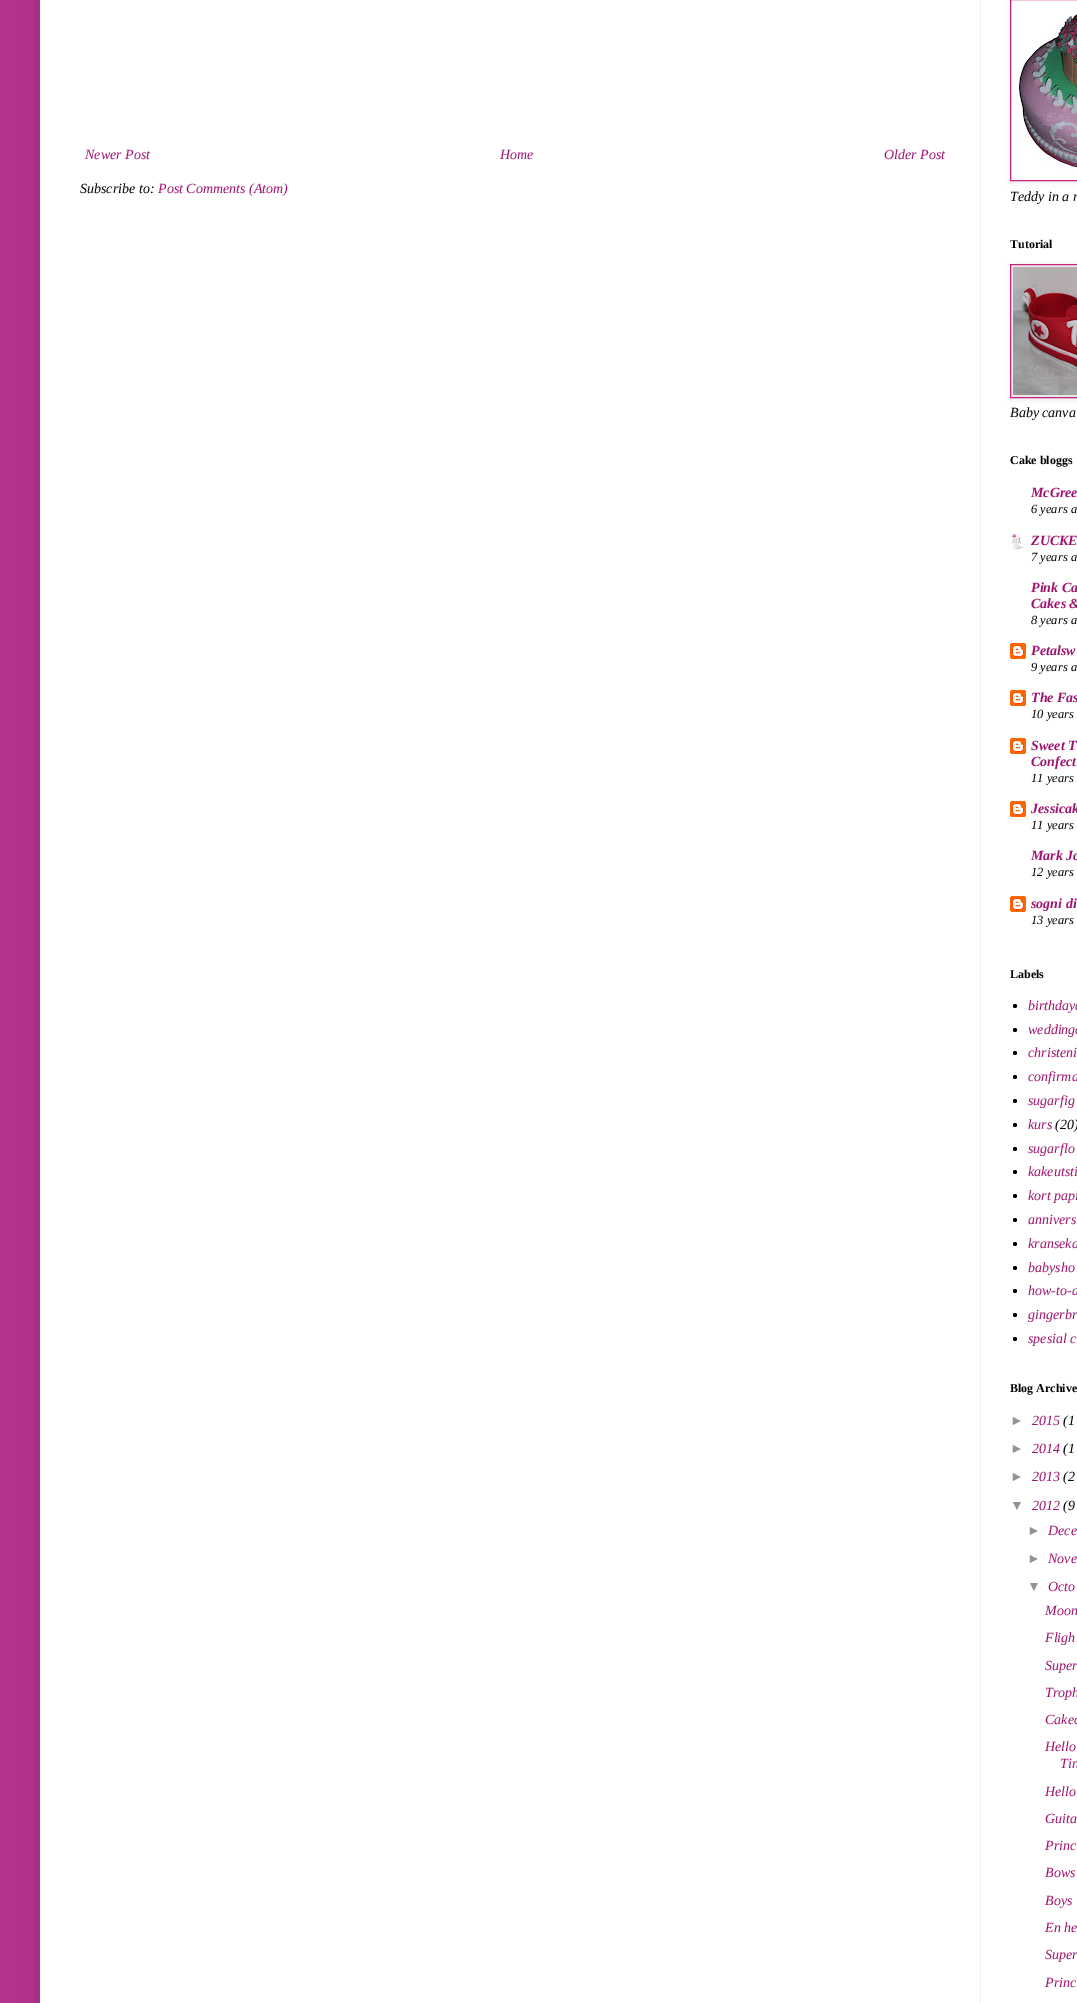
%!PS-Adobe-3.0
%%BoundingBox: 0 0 1077 2003
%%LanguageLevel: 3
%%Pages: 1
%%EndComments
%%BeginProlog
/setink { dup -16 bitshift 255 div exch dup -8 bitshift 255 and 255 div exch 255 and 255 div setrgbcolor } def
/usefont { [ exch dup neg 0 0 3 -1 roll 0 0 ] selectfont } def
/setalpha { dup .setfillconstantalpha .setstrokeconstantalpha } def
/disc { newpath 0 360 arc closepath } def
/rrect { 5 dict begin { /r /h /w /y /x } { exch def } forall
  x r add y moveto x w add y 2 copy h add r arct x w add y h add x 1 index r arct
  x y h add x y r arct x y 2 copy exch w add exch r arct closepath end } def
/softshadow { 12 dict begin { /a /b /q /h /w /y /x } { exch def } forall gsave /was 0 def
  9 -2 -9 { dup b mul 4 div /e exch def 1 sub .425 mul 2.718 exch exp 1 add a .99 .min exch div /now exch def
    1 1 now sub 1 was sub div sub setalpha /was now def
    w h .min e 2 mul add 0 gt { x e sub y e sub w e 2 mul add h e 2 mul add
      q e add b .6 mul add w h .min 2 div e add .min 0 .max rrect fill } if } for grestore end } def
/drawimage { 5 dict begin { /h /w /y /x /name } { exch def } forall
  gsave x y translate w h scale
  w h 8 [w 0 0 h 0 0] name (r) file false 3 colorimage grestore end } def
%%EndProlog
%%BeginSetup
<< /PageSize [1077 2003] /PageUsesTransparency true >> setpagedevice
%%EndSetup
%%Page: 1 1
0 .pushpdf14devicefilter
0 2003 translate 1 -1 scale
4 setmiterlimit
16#B83291 setink
0 0 1077 2003 rectfill
16#000000 setink
40 -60 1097 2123 0 20 0.15 softshadow
16#FFFFFF setink
40 0 1037 2003 rectfill
16#F2F2F2 setink
980 0 1 2003 rectfill
/LiberationSerif-Italic 14 usefont
16#9F116E setink
[
    [(Newer Post) 85 159]
    [(Home) 500 159]
    [(Older Post) 884 159]
] { aload pop moveto show } forall
16#000000 setink
80 193 moveto (Subscribe to:) show
16#9F116E setink
158 193 moveto (Post Comments \(Atom\)) show
gsave
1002 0 moveto 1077 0 lineto 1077 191 lineto 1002 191 lineto closepath 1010 -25 moveto 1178 -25 lineto 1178 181 lineto 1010 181 lineto closepath eoclip newpath
16#000000 setink
1011 -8 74 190 0 2.5 0.1 softshadow
grestore
16#C72280 setink
1010.5 -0.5 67 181 rectstroke
(img1.raw) 1013 10 64 160 drawimage
16#000000 setink
1010 201 moveto (Teddy in a r) show
/LiberationSerif-Bold 12 usefont
1010 248 moveto (Tutorial) show
1011 265 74 134 0 2.5 0.1 softshadow
16#C72280 setink
1010.5 264.5 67 133 rectstroke
(img2.raw) 1013 267 64 128 drawimage
/LiberationSerif-Italic 14 usefont
16#000000 setink
1010 417 moveto (Baby canva) show
/LiberationSerif-Bold 12 usefont
1010 464 moveto (Cake bloggs) show
/LiberationSerif-BoldItalic 14 usefont
16#9F116E setink
1031 497 moveto (McGree) show
/LiberationSerif-Italic 12.5 usefont
16#000000 setink
1031 513 moveto (6 years a) show
(img3.raw) 1011 533 13 16 drawimage
/LiberationSerif-BoldItalic 14 usefont
16#9F116E setink
1031 545 moveto (ZUCKE) show
/LiberationSerif-Italic 12.5 usefont
16#000000 setink
1031 561 moveto (7 years a) show
/LiberationSerif-BoldItalic 14 usefont
16#9F116E setink
1031 592 moveto (Pink Ca) show
1031 608 moveto (Cakes &) show
/LiberationSerif-Italic 12.5 usefont
16#000000 setink
1031 624 moveto (8 years a) show
(img4.raw) 1010 643 16 16 drawimage
/LiberationSerif-BoldItalic 14 usefont
16#9F116E setink
1031 655 moveto (Petalsw) show
/LiberationSerif-Italic 12.5 usefont
16#000000 setink
1031 671 moveto (9 years a) show
(img4.raw) 1010 690 16 16 drawimage
/LiberationSerif-BoldItalic 14 usefont
16#9F116E setink
1031 702 moveto (The Fas) show
/LiberationSerif-Italic 12.5 usefont
16#000000 setink
1031 718 moveto (10 years) show
(img4.raw) 1010 738 16 16 drawimage
/LiberationSerif-BoldItalic 14 usefont
16#9F116E setink
1031 750 moveto (Sweet T) show
1031 766 moveto (Confect) show
/LiberationSerif-Italic 12.5 usefont
16#000000 setink
1031 782 moveto (11 years) show
(img4.raw) 1010 801 16 16 drawimage
/LiberationSerif-BoldItalic 14 usefont
16#9F116E setink
1031 813 moveto (Jessicak) show
/LiberationSerif-Italic 12.5 usefont
16#000000 setink
1031 829 moveto (11 years) show
/LiberationSerif-BoldItalic 14 usefont
16#9F116E setink
1031 860 moveto (Mark Jo) show
/LiberationSerif-Italic 12.5 usefont
16#000000 setink
1031 876 moveto (12 years) show
(img4.raw) 1010 896 16 16 drawimage
/LiberationSerif-BoldItalic 14 usefont
16#9F116E setink
1031 908 moveto (sogni di) show
/LiberationSerif-Italic 12.5 usefont
16#000000 setink
1031 924 moveto (13 years) show
/LiberationSerif-Bold 12 usefont
1010 978 moveto (Labels) show
1015 1006 2 disc fill
/LiberationSerif-Italic 14 usefont
16#9F116E setink
1028 1010 moveto (birthdayc) show
16#000000 setink
1015 1030 2 disc fill
16#9F116E setink
1028 1034 moveto (weddingc) show
16#000000 setink
1015 1053 2 disc fill
16#9F116E setink
1028 1057 moveto (christeni) show
16#000000 setink
1015 1077 2 disc fill
16#9F116E setink
1028 1081 moveto (confirma) show
16#000000 setink
1015 1101 2 disc fill
16#9F116E setink
1028 1105 moveto (sugarfig) show
16#000000 setink
1015 1125 2 disc fill
16#9F116E setink
1028 1129 moveto (kurs) show
16#000000 setink
1055 1129 moveto (\(20\)) show
1015 1149 2 disc fill
16#9F116E setink
1028 1153 moveto (sugarflo) show
16#000000 setink
1015 1172 2 disc fill
16#9F116E setink
1028 1176 moveto (kakeutsti) show
16#000000 setink
1015 1196 2 disc fill
16#9F116E setink
1028 1200 moveto (kort papi) show
16#000000 setink
1015 1220 2 disc fill
16#9F116E setink
1028 1224 moveto (annivers) show
16#000000 setink
1015 1244 2 disc fill
16#9F116E setink
1028 1248 moveto (kranseka) show
16#000000 setink
1015 1268 2 disc fill
16#9F116E setink
1028 1272 moveto (babysho) show
16#000000 setink
1015 1291 2 disc fill
16#9F116E setink
1028 1295 moveto (how-to-d) show
16#000000 setink
1015 1315 2 disc fill
16#9F116E setink
1028 1319 moveto (gingerbr) show
16#000000 setink
1015 1339 2 disc fill
16#9F116E setink
1028 1343 moveto (spesial c) show
/LiberationSerif-Bold 12 usefont
16#000000 setink
1010 1392 moveto (Blog Archive) show
/LiberationSans-Italic 14 usefont
16#939393 setink
1010 1425 moveto (►) show
/LiberationSerif-Italic 14 usefont
16#9F116E setink
1032 1425 moveto (2015) show
16#000000 setink
1063 1425 moveto (\(1) show
/LiberationSans-Italic 14 usefont
16#939393 setink
1010 1453 moveto (►) show
/LiberationSerif-Italic 14 usefont
16#9F116E setink
1032 1453 moveto (2014) show
16#000000 setink
1063 1453 moveto (\(1) show
/LiberationSans-Italic 14 usefont
16#939393 setink
1010 1481 moveto (►) show
/LiberationSerif-Italic 14 usefont
16#9F116E setink
1032 1481 moveto (2013) show
16#000000 setink
1063 1481 moveto (\(2) show
/LiberationSans-Italic 14 usefont
16#939393 setink
1010 1510 moveto (▼) show
/LiberationSerif-Italic 14 usefont
16#9F116E setink
1032 1510 moveto (2012) show
16#000000 setink
1063 1510 moveto (\(9) show
/LiberationSans-Italic 14 usefont
16#939393 setink
1027 1535 moveto (►) show
/LiberationSerif-Italic 14 usefont
16#9F116E setink
1048 1535 moveto (Dece) show
/LiberationSans-Italic 14 usefont
16#939393 setink
1027 1563 moveto (►) show
/LiberationSerif-Italic 14 usefont
16#9F116E setink
1048 1563 moveto (Nove) show
/LiberationSans-Italic 14 usefont
16#939393 setink
1027 1591 moveto (▼) show
/LiberationSerif-Italic 14 usefont
16#9F116E setink
[
    [(Octo) 1048 1591]
    [(Moon) 1045 1615]
    [(Fligh) 1045 1642]
    [(Super) 1045 1670]
    [(Troph) 1045 1697]
    [(Cakec) 1045 1724]
    [(Hello) 1045 1751]
    [(Tin) 1060 1768]
    [(Hello) 1045 1796]
    [(Guita) 1045 1823]
    [(Princ) 1045 1850]
    [(Bows) 1045 1877]
    [(Boys) 1045 1905]
    [(En he) 1045 1932]
    [(Super) 1045 1959]
    [(Princ) 1045 1987]
] { aload pop moveto show } forall
.poppdf14devicefilter showpage
%%EOF
